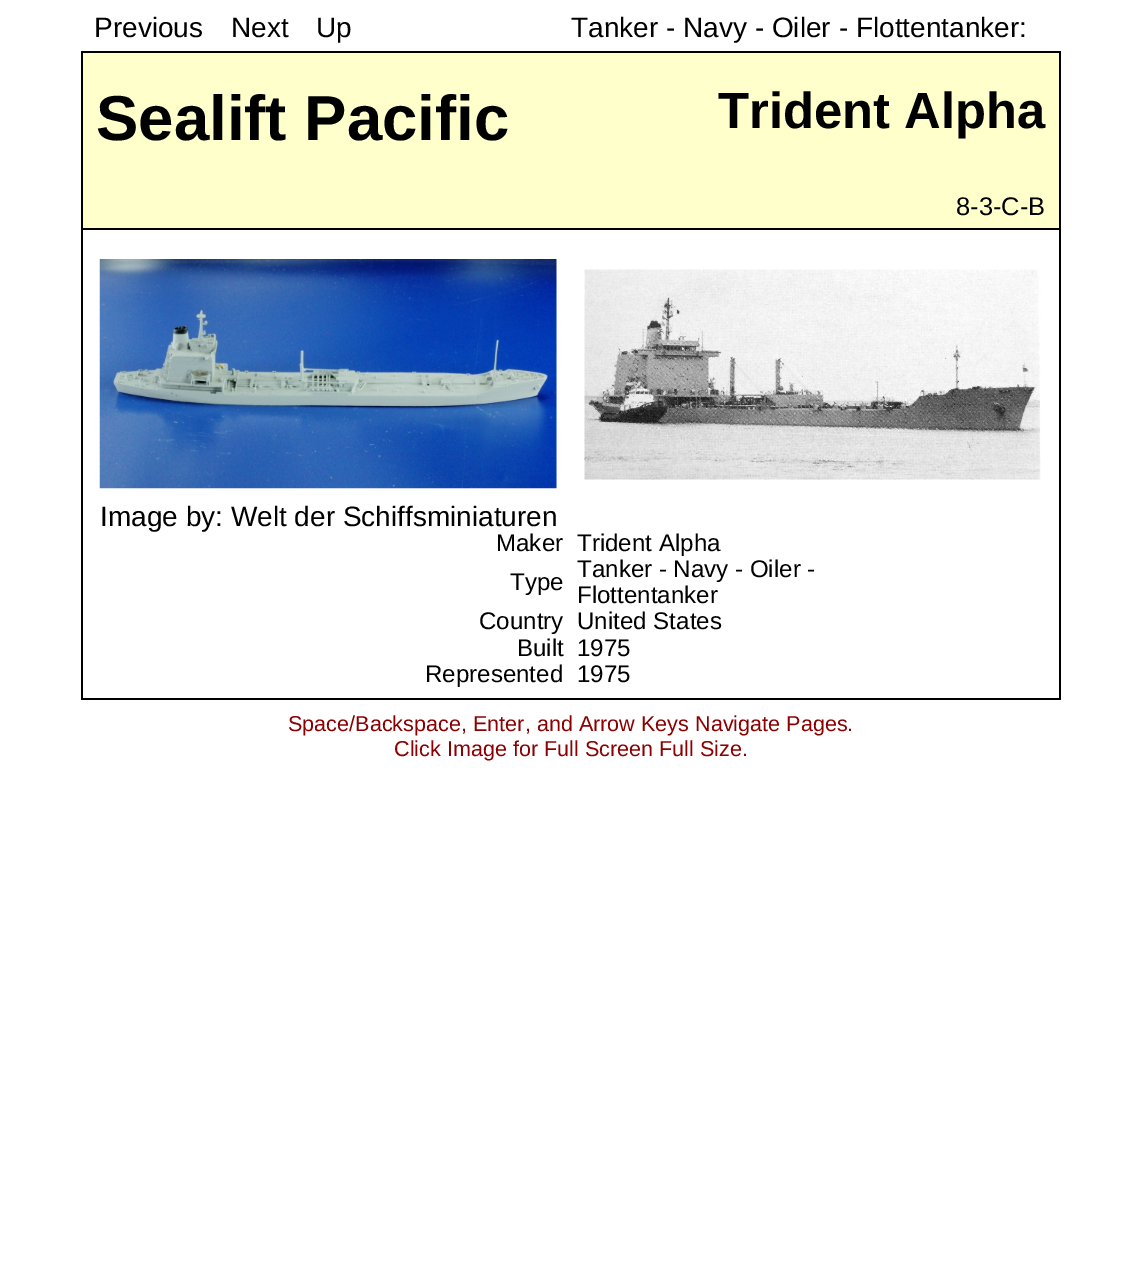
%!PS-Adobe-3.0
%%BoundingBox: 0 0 1140 1269
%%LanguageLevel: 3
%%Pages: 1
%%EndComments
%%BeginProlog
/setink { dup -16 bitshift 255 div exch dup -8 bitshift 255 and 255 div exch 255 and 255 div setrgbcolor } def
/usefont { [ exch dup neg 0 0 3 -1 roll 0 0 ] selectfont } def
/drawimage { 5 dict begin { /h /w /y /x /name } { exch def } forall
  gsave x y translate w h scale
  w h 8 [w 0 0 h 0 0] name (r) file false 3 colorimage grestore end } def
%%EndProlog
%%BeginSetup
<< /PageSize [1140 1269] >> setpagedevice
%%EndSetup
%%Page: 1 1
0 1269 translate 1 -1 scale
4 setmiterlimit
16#FFFFFF setink
0 0 1140 1269 rectfill
/LiberationSans-Regular 28 usefont
16#000000 setink
[
    [(Previous) 94 37]
    [(Next) 231 37]
    [(Up) 316 37]
    [(Tanker - Navy - Oiler - Flottentanker:) 571 37]
] { aload pop moveto show } forall
[
    [83 53 976 99 16#FFFFCC]
    [81 51 980 2 16#000000]
    [81 51 2 101 16#000000]
] { aload pop setink rectfill } forall
/LiberationSans-Bold 63.5 usefont
96 140 moveto (Sealift Pacific) show
1059 51 2 178 rectfill
/LiberationSans-Bold 50.75 usefont
718 128 moveto (Trident Alpha) show
[
    [83 152 976 76 16#FFFFCC]
    [1059 229 2 471 16#000000]
    [81 229 2 300 16#000000]
    [81 228 980 2 16#000000]
    [81 152 2 77 16#000000]
] { aload pop setink rectfill } forall
/LiberationSans-Regular 25.5 usefont
956 215 moveto (8-3-C-B) show
(img1.raw) 584 269 457 211 drawimage
(img2.raw) 99 259 458 230 drawimage
/LiberationSans-Regular 28 usefont
100 526 moveto (Image by: Welt der Schiffsminiaturen) show
81 698 980 2 rectfill
81 529 2 171 rectfill
/LiberationSans-Regular 24.1 usefont
[
    [(Maker) 496 551]
    [(Trident Alpha) 577 551]
    [(Type) 510 590]
    [(Tanker - Navy - Oiler -) 577 577]
    [(Flottentanker) 577 603]
    [(Country) 479 629]
    [(United States) 577 629]
    [(Built) 517 656]
    [(1975) 577 656]
    [(Represented) 425 682]
    [(1975) 577 682]
] { aload pop moveto show } forall
/LiberationSans-Regular 21.6 usefont
16#8B0000 setink
288 731 moveto (Space/Backspace, Enter, and Arrow Keys Navigate Pages.) show
394 756 moveto (Click Image for Full Screen Full Size.) show
showpage
%%EOF
